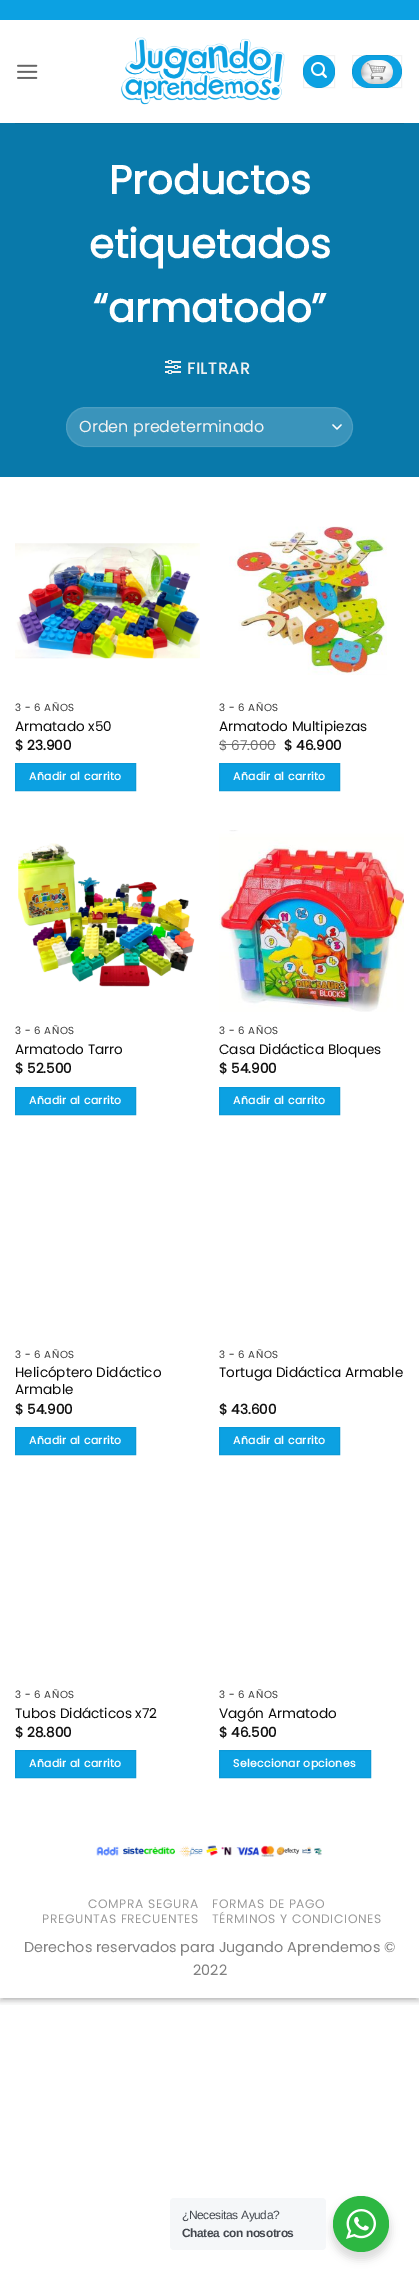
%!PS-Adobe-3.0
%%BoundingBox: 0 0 419 2282
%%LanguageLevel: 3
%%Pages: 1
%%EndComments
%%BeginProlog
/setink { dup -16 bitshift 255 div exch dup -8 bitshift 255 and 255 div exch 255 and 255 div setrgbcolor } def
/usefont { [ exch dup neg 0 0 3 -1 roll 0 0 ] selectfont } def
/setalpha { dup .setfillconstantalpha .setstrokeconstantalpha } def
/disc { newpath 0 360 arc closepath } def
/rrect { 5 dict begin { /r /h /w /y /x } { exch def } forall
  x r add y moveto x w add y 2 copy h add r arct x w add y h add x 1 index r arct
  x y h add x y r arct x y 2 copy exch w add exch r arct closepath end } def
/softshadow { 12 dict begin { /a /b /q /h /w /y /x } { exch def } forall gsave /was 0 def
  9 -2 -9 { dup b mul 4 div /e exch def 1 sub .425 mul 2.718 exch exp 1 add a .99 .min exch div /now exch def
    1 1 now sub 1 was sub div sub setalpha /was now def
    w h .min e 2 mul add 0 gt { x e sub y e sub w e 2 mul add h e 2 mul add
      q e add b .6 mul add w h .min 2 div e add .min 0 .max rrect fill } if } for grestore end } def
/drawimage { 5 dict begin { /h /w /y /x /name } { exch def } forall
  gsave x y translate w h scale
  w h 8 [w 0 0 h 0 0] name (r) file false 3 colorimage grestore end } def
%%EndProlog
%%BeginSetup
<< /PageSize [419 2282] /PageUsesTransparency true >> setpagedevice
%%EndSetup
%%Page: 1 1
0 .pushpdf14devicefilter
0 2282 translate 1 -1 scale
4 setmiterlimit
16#FFFFFF setink
0 0 419 2282 rectfill
gsave
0 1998 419 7 rectclip
16#000000 setink
0 3 419 1998 0 3 0.23 softshadow
grestore
gsave
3 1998 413 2 rectclip
16#000000 setink
4 7 411 1990 0 3 0.16 softshadow
grestore
16#0CA1E2 setink
0 0 419 20 rectfill
(img1.raw) 17 64 21 15 drawimage
(img2.raw) 121 37 164 68 drawimage
303 55 32 33 16 rrect fill
0.05 setalpha
16#000000 setink
303.5 55.5 31 32 rectstroke
1 setalpha
(img3.raw) 311 62 16 16 drawimage
16#0CA1E2 setink
352 55 50 33 16.5 rrect fill
0.05 setalpha
16#000000 setink
352.5 55.5 49 32 rectstroke
1 setalpha
(img4.raw) 361 60 32 24 drawimage
16#0979AA setink
0 123 419 354 rectfill
16#096E9A setink
15 123 389 1 rectfill
/Poppins-Bold 40 usefont
16#FFFFFF setink
[
    [(Productos) 109 194]
    [(etiquetados) 89 258]
    [(“armatodo”) 93 322]
] { aload pop moveto show } forall
(img5.raw) 165 360 16 14 drawimage
/Poppins-Bold 16 usefont
16#F1F1F1 setink
187 374 moveto 0.75 0 (FILTRAR) ashow
16#3A94BB setink
66 407 287 40 20 rrect fill
16#FFFFFF setink
1.3 setlinewidth
1 setlinecap
1 setlinejoin
333 425 moveto 337 429 lineto 341 425 lineto stroke
0.09 setalpha
1 setlinewidth
0 setlinecap
0 setlinejoin
66.5 407.5 286 39 19.5 rrect stroke
/Poppins-Regular 16 usefont
1 setalpha
16#F1F1F1 setink
79 432 moveto (Orden predeterminado) show
(img6.raw) 15 543 185 116 drawimage
/Poppins-Regular 10.25 usefont
16#3B3B3B setink
15 711 moveto 0.5 0 (3 - 6 AÑOS) ashow
/Poppins-Regular 13.6 usefont
16#0A0A0A setink
15 731 moveto (Armatado x50) show
/Poppins-Bold 13.6 usefont
16#111111 setink
15 750 moveto ($ 23.900) show
16#0CA1E2 setink
15.5 763.5 moveto 135.5 763.5 lineto 135.5 790.5 lineto 15.5 790.5 lineto closepath gsave fill grestore
16#0B99D7 setink
stroke
/Poppins-Bold 10.9 usefont
16#FFFFFF setink
29 780 moveto 0.3 0 (Añadir al carrito) ashow
(img7.raw) 229 526 158 149 drawimage
/Poppins-Regular 10.25 usefont
16#3B3B3B setink
219 711 moveto 0.5 0 (3 - 6 AÑOS) ashow
/Poppins-Regular 13.6 usefont
16#0A0A0A setink
219 731 moveto (Armatodo Multipiezas) show
16#707070 setink
219 750 moveto ($ 67.000) show
16#6C6C6C setink
219 744 57 1 rectfill
/Poppins-Bold 13.6 usefont
16#111111 setink
284 750 moveto ($ 46.900) show
16#0CA1E2 setink
219.5 763.5 moveto 339.5 763.5 lineto 339.5 790.5 lineto 219.5 790.5 lineto closepath gsave fill grestore
16#0B99D7 setink
stroke
/Poppins-Bold 10.9 usefont
16#FFFFFF setink
233 780 moveto 0.3 0 (Añadir al carrito) ashow
(img8.raw) 18 843 177 144 drawimage
/Poppins-Regular 10.25 usefont
16#3B3B3B setink
15 1034 moveto 0.5 0 (3 - 6 AÑOS) ashow
/Poppins-Regular 13.6 usefont
16#0A0A0A setink
15 1054 moveto (Armatodo Tarro) show
/Poppins-Bold 13.6 usefont
16#111111 setink
15 1073 moveto ($ 52.500) show
16#0CA1E2 setink
15.5 1087.5 moveto 135.5 1087.5 lineto 135.5 1114.5 lineto 15.5 1114.5 lineto closepath gsave fill grestore
16#0B99D7 setink
stroke
/Poppins-Bold 10.9 usefont
16#FFFFFF setink
29 1104 moveto 0.3 0 (Añadir al carrito) ashow
(img9.raw) 219 830 185 182 drawimage
/Poppins-Regular 10.25 usefont
16#3B3B3B setink
219 1034 moveto 0.5 0 (3 - 6 AÑOS) ashow
/Poppins-Regular 13.6 usefont
16#0A0A0A setink
219 1054 moveto (Casa Didáctica Bloques) show
/Poppins-Bold 13.6 usefont
16#111111 setink
219 1073 moveto ($ 54.900) show
16#0CA1E2 setink
219.5 1087.5 moveto 339.5 1087.5 lineto 339.5 1114.5 lineto 219.5 1114.5 lineto closepath gsave fill grestore
16#0B99D7 setink
stroke
/Poppins-Bold 10.9 usefont
16#FFFFFF setink
233 1104 moveto 0.3 0 (Añadir al carrito) ashow
/Poppins-Regular 10.25 usefont
16#3B3B3B setink
15 1358 moveto 0.5 0 (3 - 6 AÑOS) ashow
/Poppins-Regular 13.6 usefont
16#0A0A0A setink
15 1377 moveto (Helicóptero Didáctico) show
15 1394 moveto (Armable) show
/Poppins-Bold 13.6 usefont
16#111111 setink
15 1414 moveto ($ 54.900) show
16#0CA1E2 setink
15.5 1427.5 moveto 135.5 1427.5 lineto 135.5 1454.5 lineto 15.5 1454.5 lineto closepath gsave fill grestore
16#0B99D7 setink
stroke
/Poppins-Bold 10.9 usefont
16#FFFFFF setink
29 1444 moveto 0.3 0 (Añadir al carrito) ashow
/Poppins-Regular 10.25 usefont
16#3B3B3B setink
219 1358 moveto 0.5 0 (3 - 6 AÑOS) ashow
/Poppins-Regular 13.6 usefont
16#0A0A0A setink
219 1377 moveto (Tortuga Didáctica Armable) show
/Poppins-Bold 13.6 usefont
16#111111 setink
219 1414 moveto ($ 43.600) show
16#0CA1E2 setink
219.5 1427.5 moveto 339.5 1427.5 lineto 339.5 1454.5 lineto 219.5 1454.5 lineto closepath gsave fill grestore
16#0B99D7 setink
stroke
/Poppins-Bold 10.9 usefont
16#FFFFFF setink
233 1444 moveto 0.3 0 (Añadir al carrito) ashow
/Poppins-Regular 10.25 usefont
16#3B3B3B setink
15 1698 moveto 0.5 0 (3 - 6 AÑOS) ashow
/Poppins-Regular 13.6 usefont
16#0A0A0A setink
15 1718 moveto (Tubos Didácticos x72) show
/Poppins-Bold 13.6 usefont
16#111111 setink
15 1737 moveto ($ 28.800) show
16#0CA1E2 setink
15.5 1750.5 moveto 135.5 1750.5 lineto 135.5 1777.5 lineto 15.5 1777.5 lineto closepath gsave fill grestore
16#0B99D7 setink
stroke
/Poppins-Bold 10.9 usefont
16#FFFFFF setink
29 1767 moveto 0.3 0 (Añadir al carrito) ashow
/Poppins-Regular 10.25 usefont
16#3B3B3B setink
219 1698 moveto 0.5 0 (3 - 6 AÑOS) ashow
/Poppins-Regular 13.6 usefont
16#0A0A0A setink
219 1718 moveto (Vagón Armatodo) show
/Poppins-Bold 13.6 usefont
16#111111 setink
219 1737 moveto ($ 46.500) show
16#0CA1E2 setink
219.5 1750.5 moveto 370.5 1750.5 lineto 370.5 1777.5 lineto 219.5 1777.5 lineto closepath gsave fill grestore
16#0B99D7 setink
stroke
/Poppins-Bold 10.9 usefont
16#FFFFFF setink
233 1767 moveto 0.3 0 (Seleccionar opciones) ashow
(img10.raw) 96 1845 226 12 drawimage
/Poppins-Regular 12.25 usefont
16#999999 setink
88 1908 moveto 0.6 0 (COMPRA SEGURA) ashow
212 1908 moveto 0.6 0 (FORMAS DE PAGO) ashow
42 1923 moveto 0.6 0 (PREGUNTAS FRECUENTES) ashow
212 1923 moveto 0.6 0 (TÉRMINOS Y CONDICIONES) ashow
/Poppins-Regular 14.4 usefont
16#808080 setink
24 1952 moveto (Derechos reservados para Jugando Aprendemos ©) show
193 1975 moveto (2022) show
16#000000 setink
331 2200 60 60 30 4 0.14 softshadow
16#F5F7F9 setink
170 2198 156 52 4 rrect fill
/LiberationSans-Regular 12 usefont
16#43474E setink
182 2219 moveto -0.4 0 (¿Necesitas Ayuda?) ashow
/LiberationSans-Bold 12 usefont
182 2237 moveto -0.4 0 (Chatea con nosotros) ashow
16#2DB742 setink
361 2224 28 disc fill
(img11.raw) 346 2209 30 30 drawimage
.poppdf14devicefilter showpage
%%EOF
